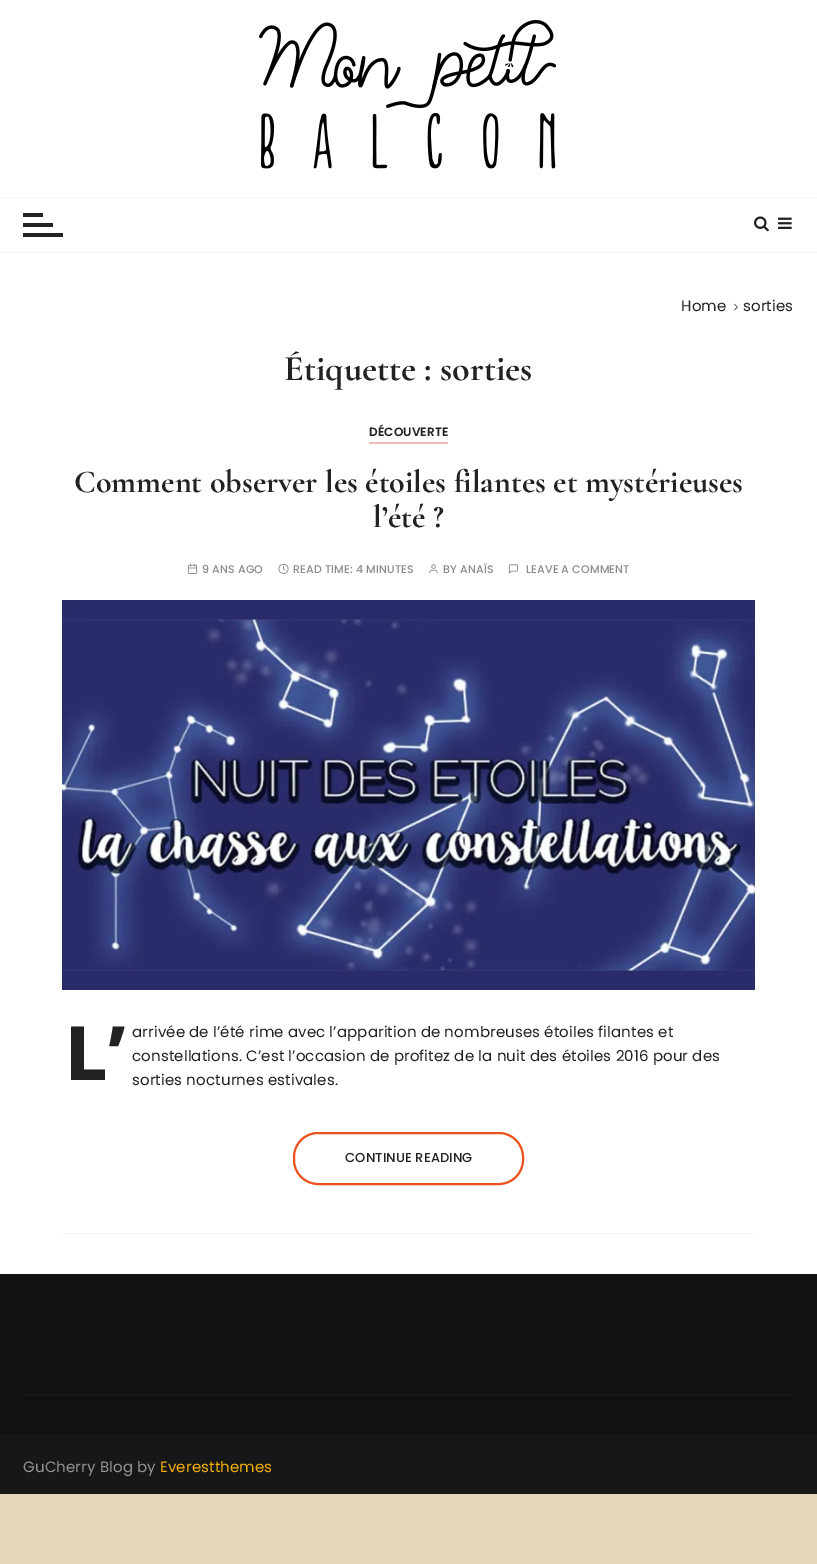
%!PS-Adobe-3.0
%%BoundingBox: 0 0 817 1564
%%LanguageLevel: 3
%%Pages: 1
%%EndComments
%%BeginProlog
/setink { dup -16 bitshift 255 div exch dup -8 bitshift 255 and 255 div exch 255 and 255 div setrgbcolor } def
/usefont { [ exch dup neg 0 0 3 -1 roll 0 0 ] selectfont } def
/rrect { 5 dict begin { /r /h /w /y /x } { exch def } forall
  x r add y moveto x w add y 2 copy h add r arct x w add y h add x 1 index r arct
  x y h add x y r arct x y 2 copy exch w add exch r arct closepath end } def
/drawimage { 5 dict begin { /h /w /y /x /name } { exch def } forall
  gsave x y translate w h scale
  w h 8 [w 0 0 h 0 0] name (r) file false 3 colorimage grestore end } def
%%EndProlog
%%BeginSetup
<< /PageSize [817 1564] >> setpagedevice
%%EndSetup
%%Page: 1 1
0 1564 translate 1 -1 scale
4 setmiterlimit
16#E5D6B9 setink
0 0 817 1564 rectfill
16#FFFFFF setink
0 0 817 1274 rectfill
(img1.raw) 259 20 298 149 drawimage
[
    [0 197 817 1 16#F5F5F5]
    [0 252 817 1 16#F5F5F5]
    [23 213 20 4 16#222222]
    [23 223 30 4 16#222222]
    [23 233 40 4 16#222222]
] { aload pop setink rectfill } forall
(img2.raw) 754 216 15 16 drawimage
(img3.raw) 778 217 14 12 drawimage
/Poppins-Regular 15 usefont
681 311 moveto 0.15 0 (Home) ashow
(img4.raw) 734 303 4 8 drawimage
743 311 moveto 0.15 0 (sorties) ashow
/CormorantGaramond-Bold 36 usefont
284 380 moveto (Étiquette : sorties) show
16#F5F5F5 setink
62 1233 693 1 rectfill
/Poppins-SemiBold 12 usefont
16#222222 setink
369 436 moveto 0.15 0 (DÉCOUVERTE) ashow
16#F3B9B9 setink
369 442 79 2 rectfill
/CormorantGaramond-Bold 32 usefont
16#222222 setink
74 492 moveto (Comment observer les étoiles filantes et mystérieuses) show
373 527 moveto (l’été ?) show
(img5.raw) 187 563 11 11 drawimage
/Poppins-Medium 11 usefont
16#8C8B8B setink
202 573 moveto 0.15 0 (9 ANS AGO) ashow
(img6.raw) 278 563 11 11 drawimage
293 573 moveto 0.15 0 (READ TIME: 4 MINUTES) ashow
(img7.raw) 429 564 9 10 drawimage
443 573 moveto 0.15 0 (BY ANAÏS) ashow
(img8.raw) 508 564 11 10 drawimage
526 573 moveto 0.15 0 (LEAVE A COMMENT) ashow
(img9.raw) 62 600 693 390 drawimage
/NotoSans-ExtraBold 75 usefont
16#222222 setink
65 1080 moveto 0.15 0 (L’) ashow
/Poppins-Regular 15 usefont
132 1037 moveto 0.15 0 (arrivée de l’été rime avec l’apparition de nombreuses étoiles filantes et) ashow
132 1061 moveto 0.15 0 (constellations. C’est l’occasion de profitez de la nuit des étoiles 2016 pour des) ashow
132 1085 moveto 0.15 0 (sorties nocturnes estivales.) ashow
16#EC521E setink
2 setlinewidth
294 1133 229 51 24 rrect stroke
/Poppins-Medium 13 usefont
16#222222 setink
345 1162 moveto 0.15 0 (CONTINUE READING) ashow
16#111111 setink
0 1274 817 161 rectfill
16#232323 setink
1 setlinewidth
[1 1] 0 setdash
23 1394.5 moveto 794 1394.5 lineto stroke
16#171717 setink
0 1435 817 59 rectfill
/Poppins-Regular 15 usefont
16#949494 setink
23 1472 moveto 0.15 0 (GuCherry Blog by) ashow
16#F5B108 setink
160 1472 moveto 0.15 0 (Everestthemes) ashow
showpage
%%EOF
